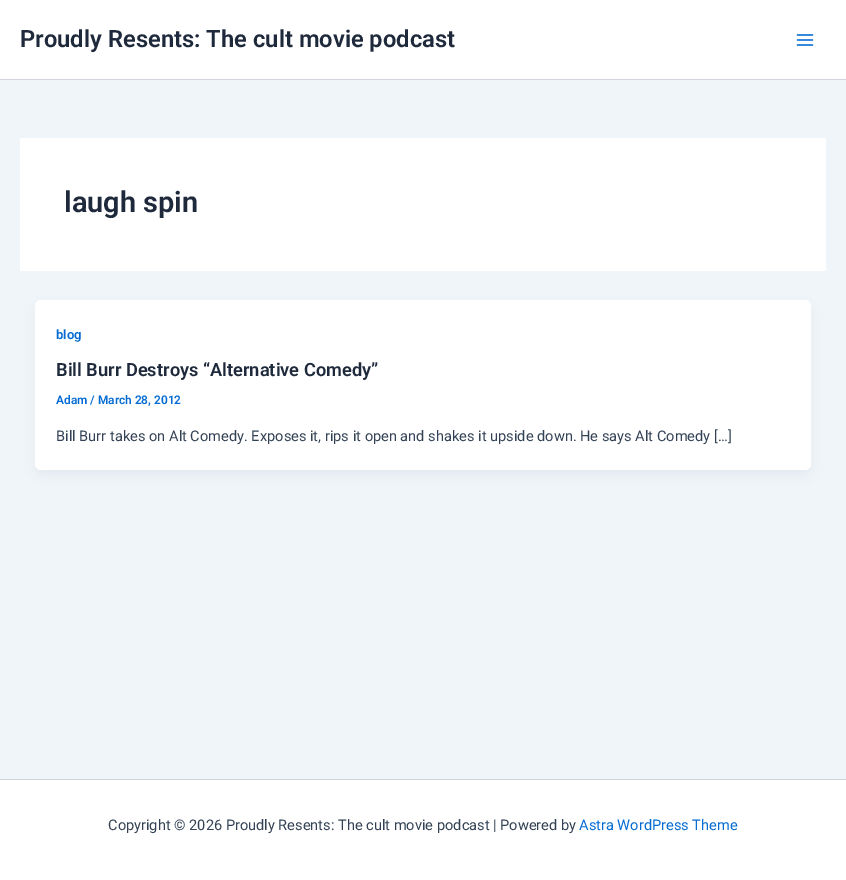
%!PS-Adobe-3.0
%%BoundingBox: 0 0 846 880
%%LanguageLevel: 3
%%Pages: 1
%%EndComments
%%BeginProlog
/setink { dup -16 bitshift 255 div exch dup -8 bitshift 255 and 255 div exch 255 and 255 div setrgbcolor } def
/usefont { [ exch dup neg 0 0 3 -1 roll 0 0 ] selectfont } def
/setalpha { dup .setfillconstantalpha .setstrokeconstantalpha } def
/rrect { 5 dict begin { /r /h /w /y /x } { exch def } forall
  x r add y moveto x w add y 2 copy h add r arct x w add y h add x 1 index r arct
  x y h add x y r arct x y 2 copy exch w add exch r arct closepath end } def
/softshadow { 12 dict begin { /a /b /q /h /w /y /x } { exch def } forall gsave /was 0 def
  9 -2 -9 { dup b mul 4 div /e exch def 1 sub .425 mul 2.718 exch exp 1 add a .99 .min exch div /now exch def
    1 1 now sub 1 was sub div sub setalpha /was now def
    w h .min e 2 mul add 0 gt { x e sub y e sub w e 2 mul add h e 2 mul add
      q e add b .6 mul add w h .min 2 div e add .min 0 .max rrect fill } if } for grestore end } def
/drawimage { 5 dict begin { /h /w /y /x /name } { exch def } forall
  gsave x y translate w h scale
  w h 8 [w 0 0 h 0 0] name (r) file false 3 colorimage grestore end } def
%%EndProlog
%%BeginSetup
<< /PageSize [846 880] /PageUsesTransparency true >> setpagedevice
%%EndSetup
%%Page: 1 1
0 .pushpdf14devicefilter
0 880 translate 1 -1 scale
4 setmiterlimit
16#F0F5FA setink
0 0 846 880 rectfill
16#FFFFFF setink
0 0 846 79 rectfill
16#D1D5DB setink
0 79 846 1 rectfill
/Roboto-SemiBold 23.75 usefont
16#1E293B setink
20 47 moveto (Proudly Resents: The cult movie podcast) show
(img1.raw) 796 34 18 12 drawimage
16#FFFFFF setink
20 138 806 133 rectfill
/Roboto-SemiBold 29 usefont
16#1E293B setink
64 212 moveto (laugh spin) show
16#101828 setink
37 308 772 166 4 7.5 0.05 softshadow
16#FFFFFF setink
35 300 776 170 6 rrect fill
/Roboto-SemiBold 13 usefont
16#046BD2 setink
56 339 moveto (blog) show
/Roboto-SemiBold 18.25 usefont
16#1E293B setink
56 376 moveto (Bill Burr Destroys “Alternative Comedy”) show
/Roboto-SemiBold 11.9 usefont
16#046BD2 setink
56 404 moveto (Adam / March 28, 2012) show
/Roboto-Regular 14.6 usefont
16#334155 setink
56 441 moveto (Bill Burr takes on Alt Comedy. Exposes it, rips it open and shakes it upside down. He says Alt Comedy […]) show
16#FFFFFF setink
0 780 846 100 rectfill
16#D1D5DB setink
0 779 846 1 rectfill
16#334155 setink
108 830 moveto (Copyright © 2026 Proudly Resents: The cult movie podcast | Powered by) show
16#046BD2 setink
579 830 moveto (Astra WordPress Theme) show
.poppdf14devicefilter showpage
%%EOF
